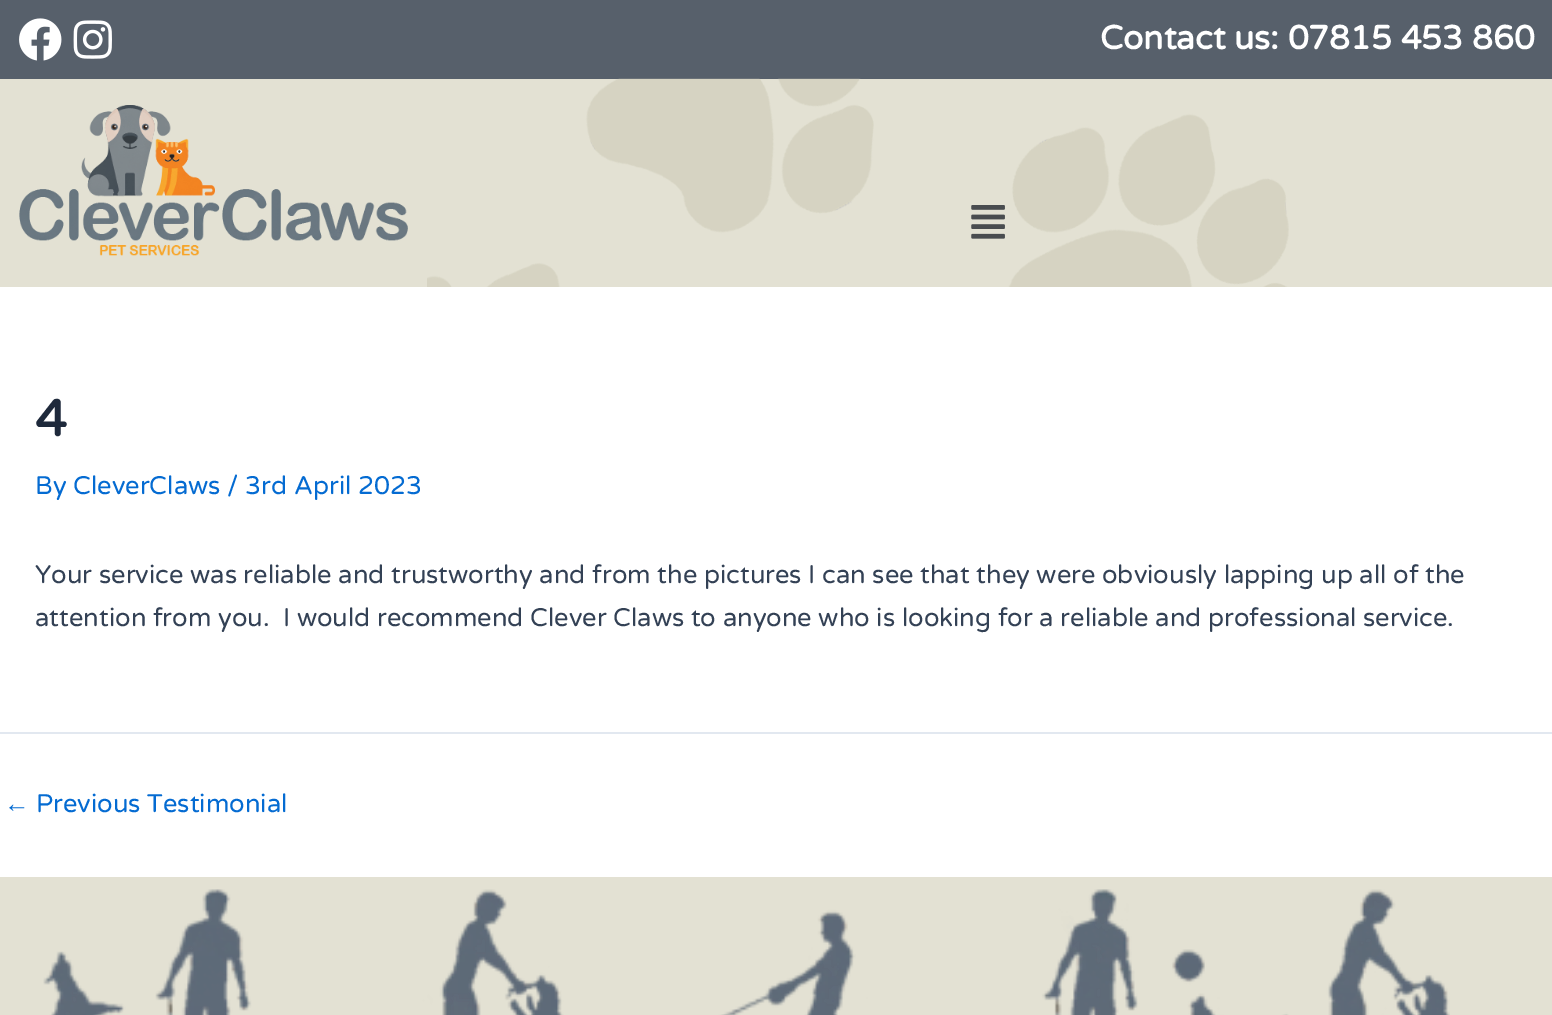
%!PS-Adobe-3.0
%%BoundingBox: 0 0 1552 1015
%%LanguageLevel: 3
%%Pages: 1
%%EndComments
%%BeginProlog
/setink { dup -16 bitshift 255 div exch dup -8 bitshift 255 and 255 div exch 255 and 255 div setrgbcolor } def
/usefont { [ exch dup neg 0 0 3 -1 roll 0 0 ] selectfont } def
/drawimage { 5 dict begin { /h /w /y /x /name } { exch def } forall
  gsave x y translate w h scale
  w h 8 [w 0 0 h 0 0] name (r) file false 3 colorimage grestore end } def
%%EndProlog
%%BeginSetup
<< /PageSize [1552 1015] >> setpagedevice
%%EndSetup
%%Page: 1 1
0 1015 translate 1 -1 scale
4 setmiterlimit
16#FFFFFF setink
0 0 1552 1015 rectfill
16#57606B setink
0 0 1552 79 rectfill
(img1.raw) 19 18 43 43 drawimage
(img2.raw) 73 20 39 39 drawimage
/VarelaRound-Bold 33.25 usefont
16#FFFFFF setink
1100 49 moveto (Contact us: 07815 453 860) show
16#E3E1D3 setink
0 79 1552 208 rectfill
(img3.raw) 19 105 389 151 drawimage
(img4.raw) 427 78 862 209 drawimage
(img5.raw) 971 205 34 34 drawimage
/VarelaRound-Bold 51 usefont
16#1E293B setink
35 436 moveto (4) show
/VarelaRound-Regular 25.55 usefont
16#046BD2 setink
35 494 moveto (By CleverClaws / 3rd April 2023) show
16#334155 setink
35 583 moveto (Your service was reliable and trustworthy and from the pictures I can see that they were obviously lapping up all of the) show
35 626 moveto (attention from you.  I would recommend Clever Claws to anyone who is looking for a reliable and professional service.) show
16#E2E8F0 setink
0 732 1552 2 rectfill
/LiberationSans-Regular 25.55 usefont
16#046BD2 setink
4 812 moveto (←) show
/VarelaRound-Regular 25.55 usefont
36 812 moveto (Previous Testimonial) show
16#E3E1D3 setink
0 877 1552 138 rectfill
(img6.raw) 43 889 1407 126 drawimage
showpage
%%EOF
